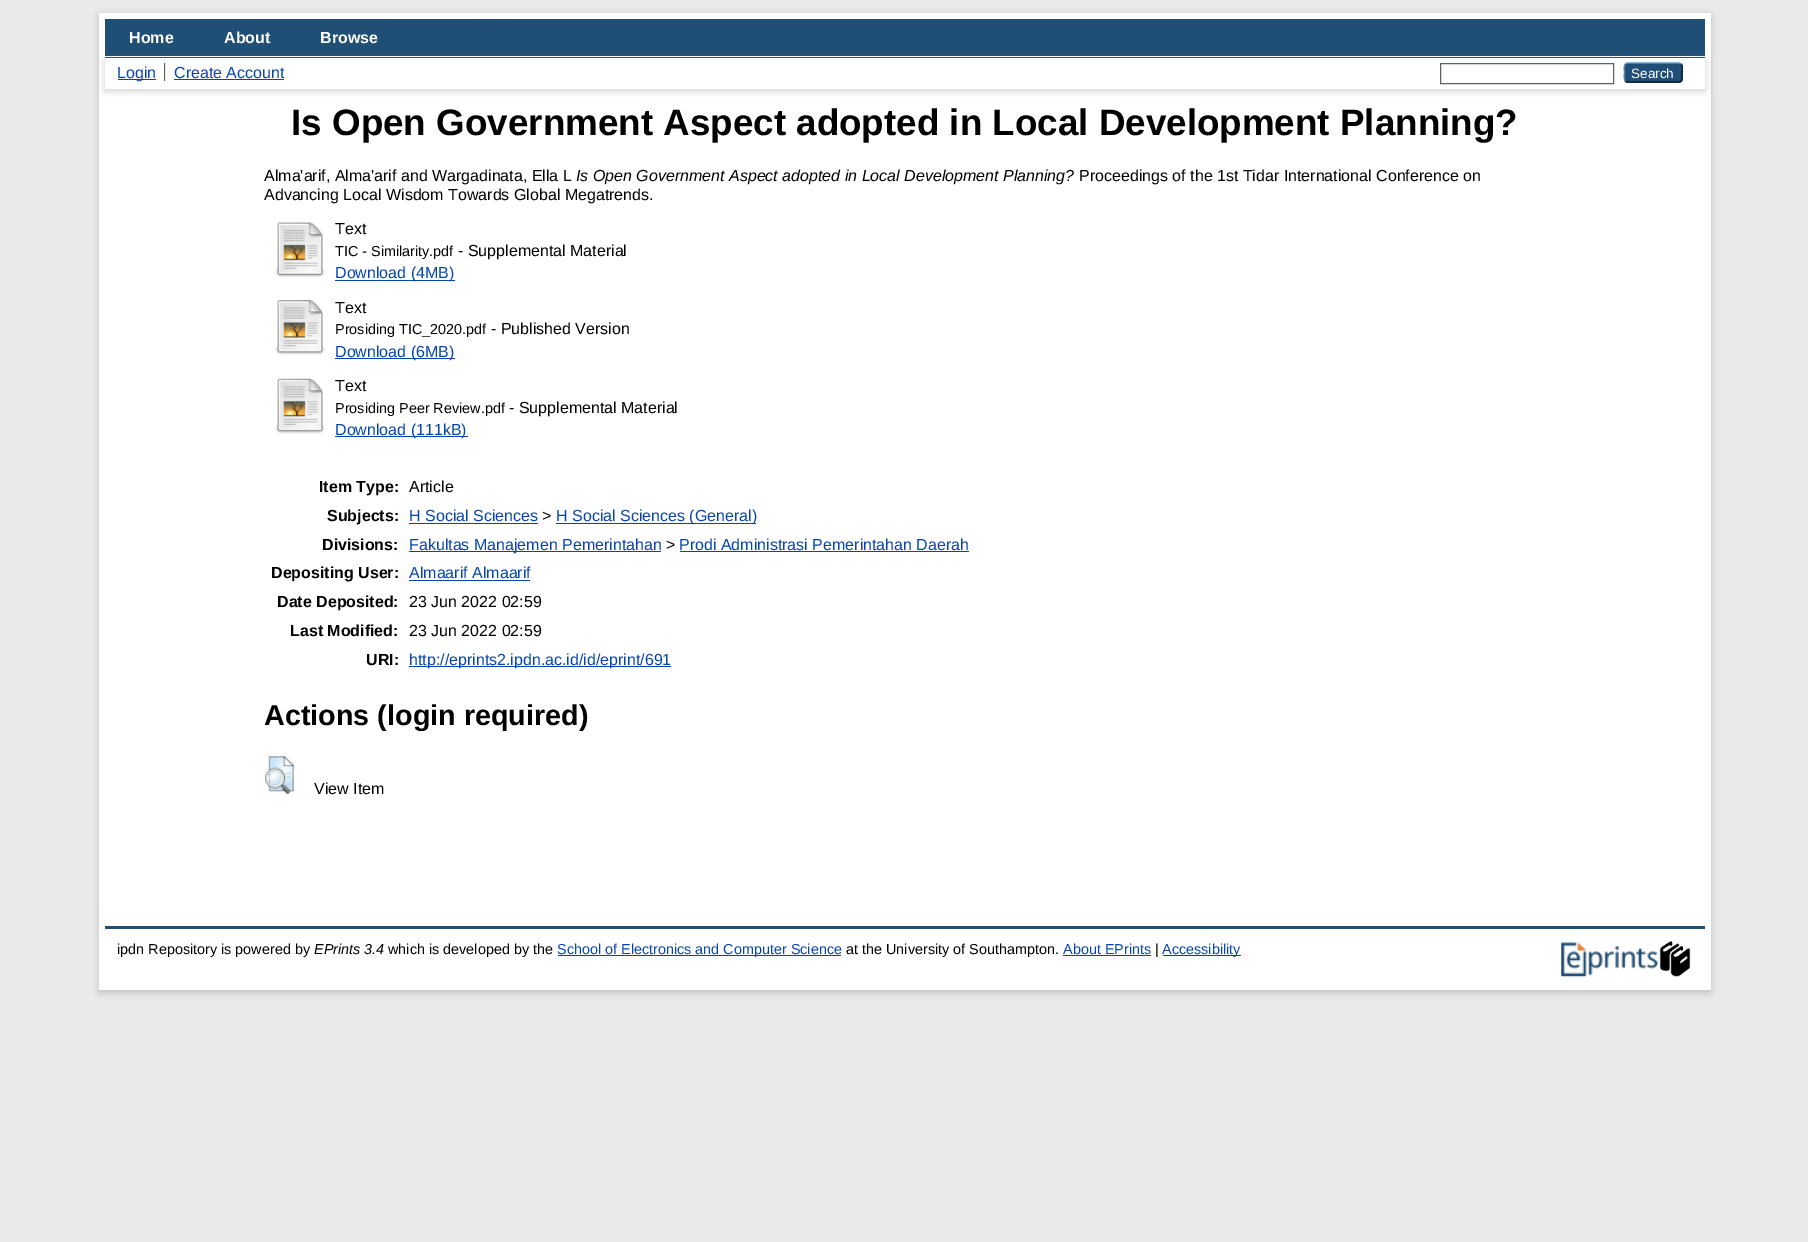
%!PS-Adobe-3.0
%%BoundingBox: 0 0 1808 1242
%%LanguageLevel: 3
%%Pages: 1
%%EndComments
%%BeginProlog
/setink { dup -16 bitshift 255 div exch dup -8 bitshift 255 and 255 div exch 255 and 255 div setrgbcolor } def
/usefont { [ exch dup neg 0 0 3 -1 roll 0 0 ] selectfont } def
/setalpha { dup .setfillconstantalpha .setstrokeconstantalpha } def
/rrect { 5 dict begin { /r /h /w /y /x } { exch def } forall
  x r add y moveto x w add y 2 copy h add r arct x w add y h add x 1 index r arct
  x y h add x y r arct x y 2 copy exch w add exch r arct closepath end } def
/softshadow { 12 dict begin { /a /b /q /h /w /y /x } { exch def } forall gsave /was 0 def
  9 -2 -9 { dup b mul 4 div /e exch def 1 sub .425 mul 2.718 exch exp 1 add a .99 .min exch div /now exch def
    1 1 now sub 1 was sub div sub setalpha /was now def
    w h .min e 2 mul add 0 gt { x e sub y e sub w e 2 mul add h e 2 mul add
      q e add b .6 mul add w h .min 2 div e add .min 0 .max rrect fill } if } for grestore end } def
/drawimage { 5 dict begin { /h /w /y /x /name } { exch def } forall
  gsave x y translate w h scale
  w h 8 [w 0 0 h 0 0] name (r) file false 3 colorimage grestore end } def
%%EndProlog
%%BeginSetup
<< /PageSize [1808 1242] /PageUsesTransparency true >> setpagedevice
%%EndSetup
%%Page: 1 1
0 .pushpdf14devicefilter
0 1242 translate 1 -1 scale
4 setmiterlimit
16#EAEAEA setink
0 0 1808 1242 rectfill
16#646464 setink
99 15 1612 978 0 4 0.3 softshadow
16#FFFFFF setink
99 13 1612 977 rectfill
(img1.raw) 132 18 379 1 drawimage
16#204F76 setink
105 19 1600 39 rectfill
16#FFFFFF setink
105 56 1600 1 rectfill
/LiberationSans-Bold 16 usefont
[
    [(Home) 129 43]
    [(About) 224 43]
    [(Browse) 320 43]
] { aload pop moveto show } forall
16#646464 setink
105 60 1600 31 0 4 0.3 softshadow
16#FFFFFF setink
105 58 1600 31 rectfill
16#0645AD setink
118 79 38 1 rectfill
/LiberationSans-Regular 16 usefont
117 78 moveto (Login) show
16#606060 setink
164 63 1 18 rectfill
16#0645AD setink
174 78 moveto (Create Account) show
16#E8E8E8 setink
165 63 1 18 rectfill
16#0645AD setink
174 79 110 1 rectfill
16#606060 setink
1440.5 63.5 173 20 rectstroke
16#1F4F76 setink
1624 63 59 20 4 rrect fill
16#5B97C7 setink
1.2 setlinewidth
1625.5 64 moveto 1627 63 lineto 1679 63 lineto 1681 64 lineto stroke
16#0D2131 setink
1681 64 moveto 1683 66 1682 70 1682 72.5 curveto 1682 83.5 1682 82 1670 82 curveto 1636 82 lineto 1636 82 1627.5 83 1625.5 81 curveto stroke
16#5287B3 setink
1625.5 81 moveto 1623.5 79 1624.5 74.5 1624.5 72.5 curveto 1624.5 70.5 1623.5 66 1625.5 64 curveto stroke
/LiberationSans-Regular 13.5 usefont
16#FFFFFF setink
1631 78 moveto (Search) show
/LiberationSans-Bold 36.8 usefont
16#000000 setink
291 135 moveto (Is Open Government Aspect adopted in Local Development Planning?) show
/LiberationSans-Regular 16 usefont
264 181 moveto (Alma'arif, Alma'arif and Wargadinata, Ella L) show
/LiberationSans-Italic 16 usefont
576 181 moveto (Is Open Government Aspect adopted in Local Development Planning?) show
/LiberationSans-Regular 16 usefont
1079 181 moveto (Proceedings of the 1st Tidar International Conference on) show
264 200 moveto (Advancing Local Wisdom Towards Global Megatrends.) show
(img2.raw) 275 222 50 56 drawimage
335 234 moveto (Text) show
/LiberationSans-Regular 14.4 usefont
335 256 moveto (TIC - Similarity.pdf) show
/LiberationSans-Regular 16 usefont
458 256 moveto (- Supplemental Material) show
16#0645AD setink
335 280 120 1 rectfill
335 278 moveto (Download \(4MB\)) show
(img3.raw) 275 300 50 55 drawimage
16#000000 setink
335 313 moveto (Text) show
/LiberationSans-Regular 14.4 usefont
335 334 moveto (Prosiding TIC_2020.pdf) show
/LiberationSans-Regular 16 usefont
491 334 moveto (- Published Version) show
16#0645AD setink
335 358 120 1 rectfill
335 357 moveto (Download \(6MB\)) show
(img4.raw) 275 378 50 56 drawimage
16#000000 setink
335 391 moveto (Text) show
/LiberationSans-Regular 14.4 usefont
335 413 moveto (Prosiding Peer Review.pdf) show
/LiberationSans-Regular 16 usefont
509 413 moveto (- Supplemental Material) show
16#0645AD setink
335 436 133 1 rectfill
335 435 moveto (Download \(111kB\)) show
/LiberationSans-Bold 16 usefont
16#000000 setink
319 492 moveto (Item Type:) show
/LiberationSans-Regular 16 usefont
409 492 moveto (Article) show
/LiberationSans-Bold 16 usefont
327 521 moveto (Subjects:) show
/LiberationSans-Regular 16 usefont
16#0645AD setink
409 521 moveto (H Social Sciences) show
409 523 129 1 rectfill
16#000000 setink
542 521 moveto (>) show
16#0645AD setink
556 523 200 1 rectfill
556 521 moveto (H Social Sciences \(General\)) show
/LiberationSans-Bold 16 usefont
16#000000 setink
322 550 moveto (Divisions:) show
16#0645AD setink
409 551 252 1 rectfill
/LiberationSans-Regular 16 usefont
409 550 moveto (Fakultas Manajemen Pemerintahan) show
16#000000 setink
666 550 moveto (>) show
16#0645AD setink
679 550 moveto (Prodi Administrasi Pemerintahan Daerah) show
680 551 289 1 rectfill
/LiberationSans-Bold 16 usefont
16#000000 setink
271 578 moveto (Depositing User:) show
/LiberationSans-Regular 16 usefont
16#0645AD setink
409 578 moveto (Almaarif Almaarif) show
409 580 121 1 rectfill
/LiberationSans-Bold 16 usefont
16#000000 setink
277 607 moveto (Date Deposited:) show
/LiberationSans-Regular 16 usefont
409 607 moveto (23 Jun 2022 02:59) show
/LiberationSans-Bold 16 usefont
290 636 moveto (Last Modified:) show
/LiberationSans-Regular 16 usefont
409 636 moveto (23 Jun 2022 02:59) show
/LiberationSans-Bold 16 usefont
366 665 moveto (URI:) show
16#0645AD setink
409 666 262 1 rectfill
/LiberationSans-Regular 16 usefont
409 665 moveto (http://eprints2.ipdn.ac.id/id/eprint/691) show
/LiberationSans-Bold 28.75 usefont
16#000000 setink
264 725 moveto (Actions \(login required\)) show
(img5.raw) 265 756 29 38 drawimage
/LiberationSans-Regular 16 usefont
314 794 moveto (View Item) show
16#204F76 setink
105 926 1600 3 rectfill
/LiberationSans-Regular 14.4 usefont
16#000000 setink
117 954 moveto (ipdn Repository is powered by) show
/LiberationSans-Italic 14.4 usefont
314 954 moveto (EPrints 3.4) show
/LiberationSans-Regular 14.4 usefont
388 954 moveto (which is developed by the) show
16#0645AD setink
558 955 283 1 rectfill
557 954 moveto (School of Electronics and Computer Science) show
16#000000 setink
846 954 moveto (at the University of Southampton.) show
16#0645AD setink
1063 954 moveto (About EPrints) show
1063 955 88 1 rectfill
16#000000 setink
1155 954 moveto (|) show
16#0645AD setink
1163 955 78 1 rectfill
1162 954 moveto (Accessibility) show
(img6.raw) 1561 942 97 35 drawimage
(img7.raw) 1659 941 32 36 drawimage
.poppdf14devicefilter showpage
%%EOF
